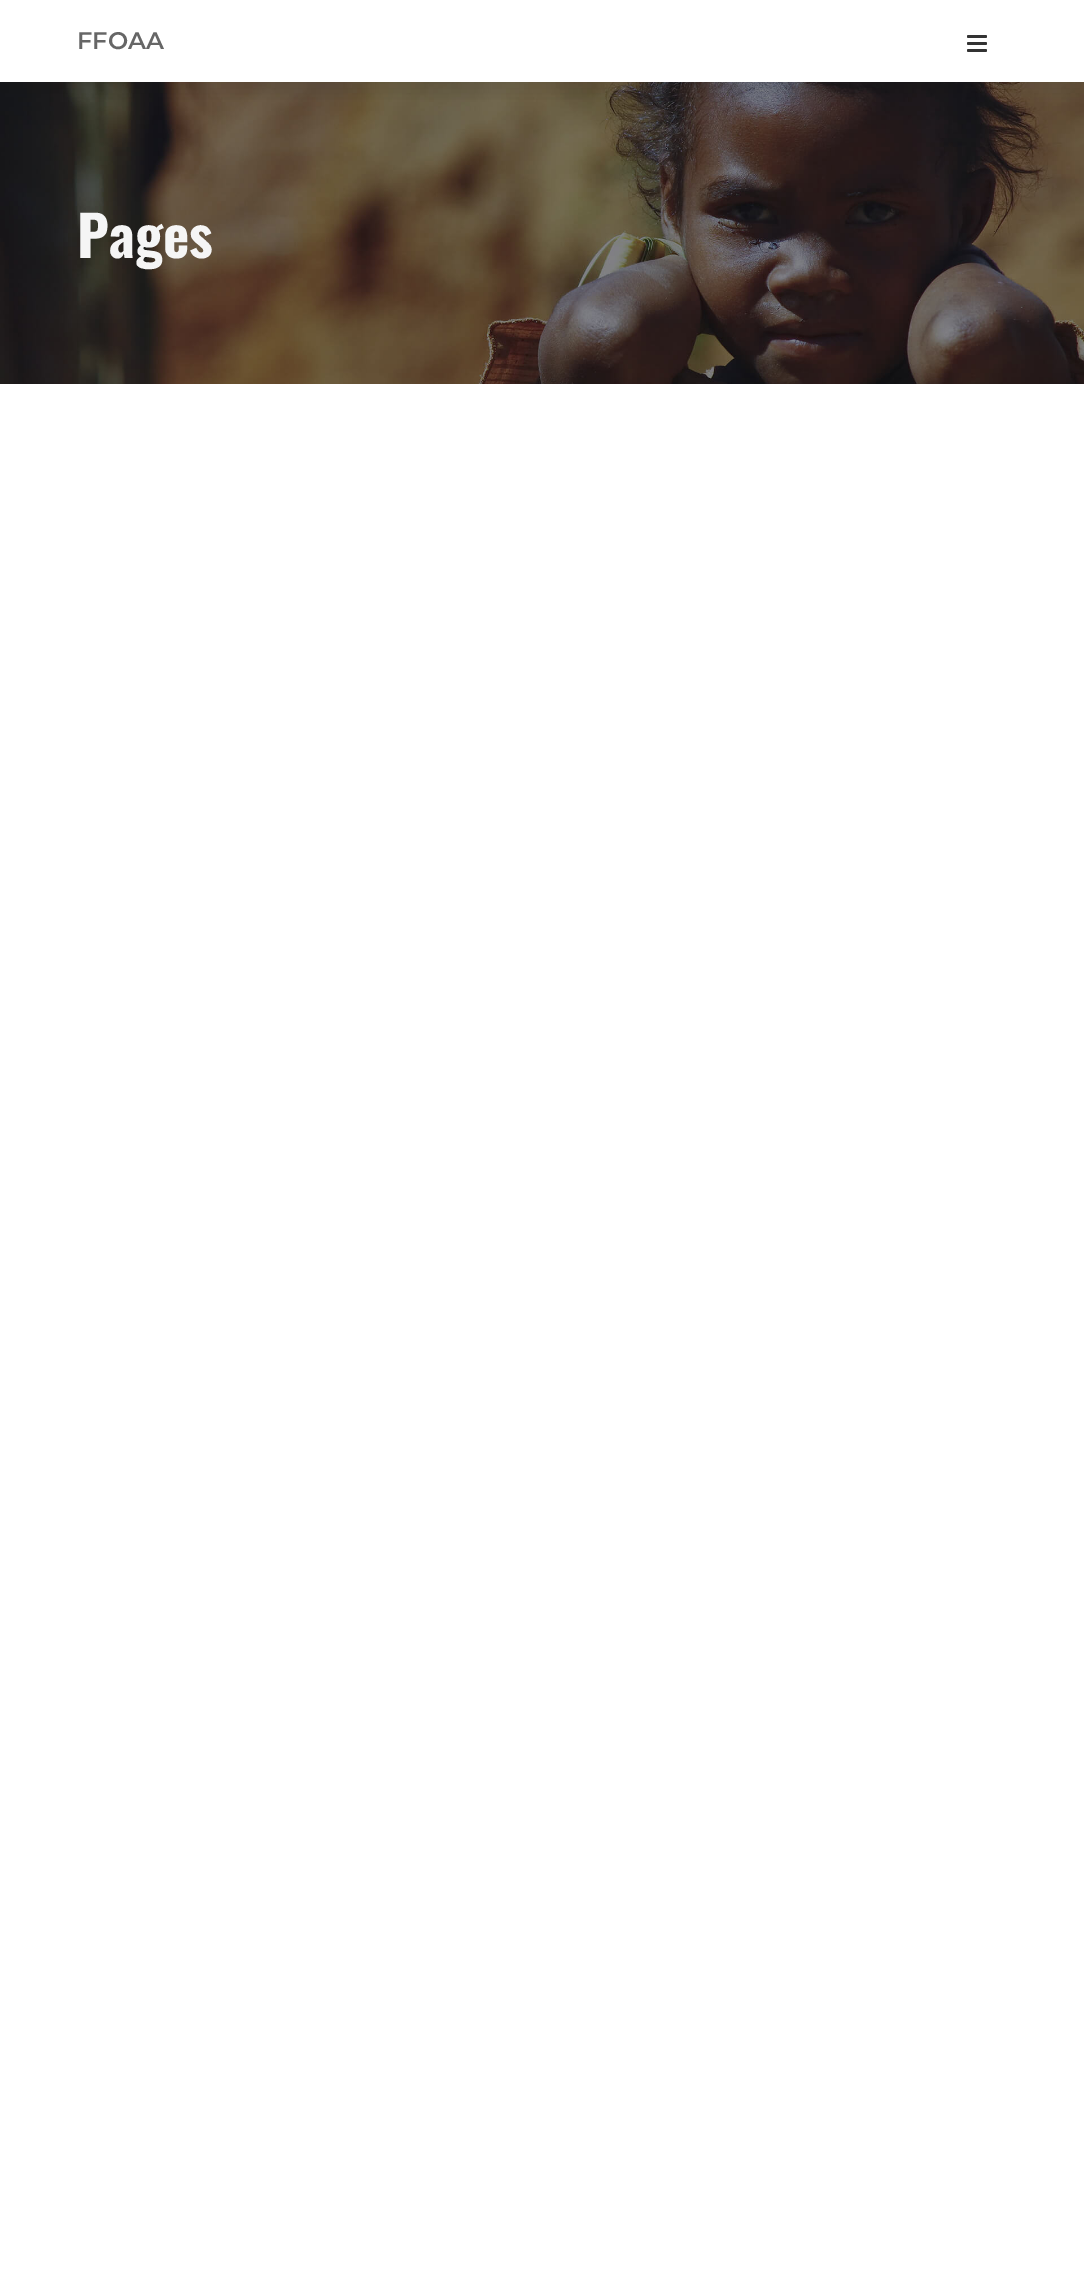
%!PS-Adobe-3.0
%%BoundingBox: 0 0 1084 2292
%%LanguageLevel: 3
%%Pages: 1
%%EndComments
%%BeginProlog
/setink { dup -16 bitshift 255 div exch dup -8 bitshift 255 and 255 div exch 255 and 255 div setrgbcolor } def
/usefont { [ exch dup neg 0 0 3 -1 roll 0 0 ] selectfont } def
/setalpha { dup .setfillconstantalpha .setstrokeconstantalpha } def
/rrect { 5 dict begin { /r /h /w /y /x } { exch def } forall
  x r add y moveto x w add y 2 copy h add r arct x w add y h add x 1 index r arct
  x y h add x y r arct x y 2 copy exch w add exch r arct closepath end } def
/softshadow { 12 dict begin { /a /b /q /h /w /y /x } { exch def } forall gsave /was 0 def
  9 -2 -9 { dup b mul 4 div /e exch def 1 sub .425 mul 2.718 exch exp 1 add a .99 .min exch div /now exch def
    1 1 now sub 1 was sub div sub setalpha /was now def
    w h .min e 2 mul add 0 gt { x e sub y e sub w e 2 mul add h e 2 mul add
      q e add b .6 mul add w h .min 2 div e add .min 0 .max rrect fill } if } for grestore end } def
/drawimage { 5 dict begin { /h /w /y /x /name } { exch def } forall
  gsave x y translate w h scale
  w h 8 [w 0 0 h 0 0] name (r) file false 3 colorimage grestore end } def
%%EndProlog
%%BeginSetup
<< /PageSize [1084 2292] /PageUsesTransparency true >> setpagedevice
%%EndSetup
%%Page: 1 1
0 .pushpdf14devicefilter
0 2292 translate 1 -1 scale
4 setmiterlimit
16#FFFFFF setink
0 0 1084 2292 rectfill
(img1.raw) 0 82 1084 302 drawimage
gsave
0 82 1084 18 rectclip
16#000000 setink
0 10 1084 82 0 10 0.1 softshadow
grestore
/Montserrat-SemiBold 24 usefont
16#666666 setink
77 49 moveto (FFOAA) show
16#333333 setink
967 35 20 3 1.5 rrect fill
967 42 20 3 1.5 rrect fill
967 49 20 3 1.5 rrect fill
/Oswald-Bold 56 usefont
16#F5F5F5 setink
77 258 moveto (Pages) show
.poppdf14devicefilter showpage
%%EOF
